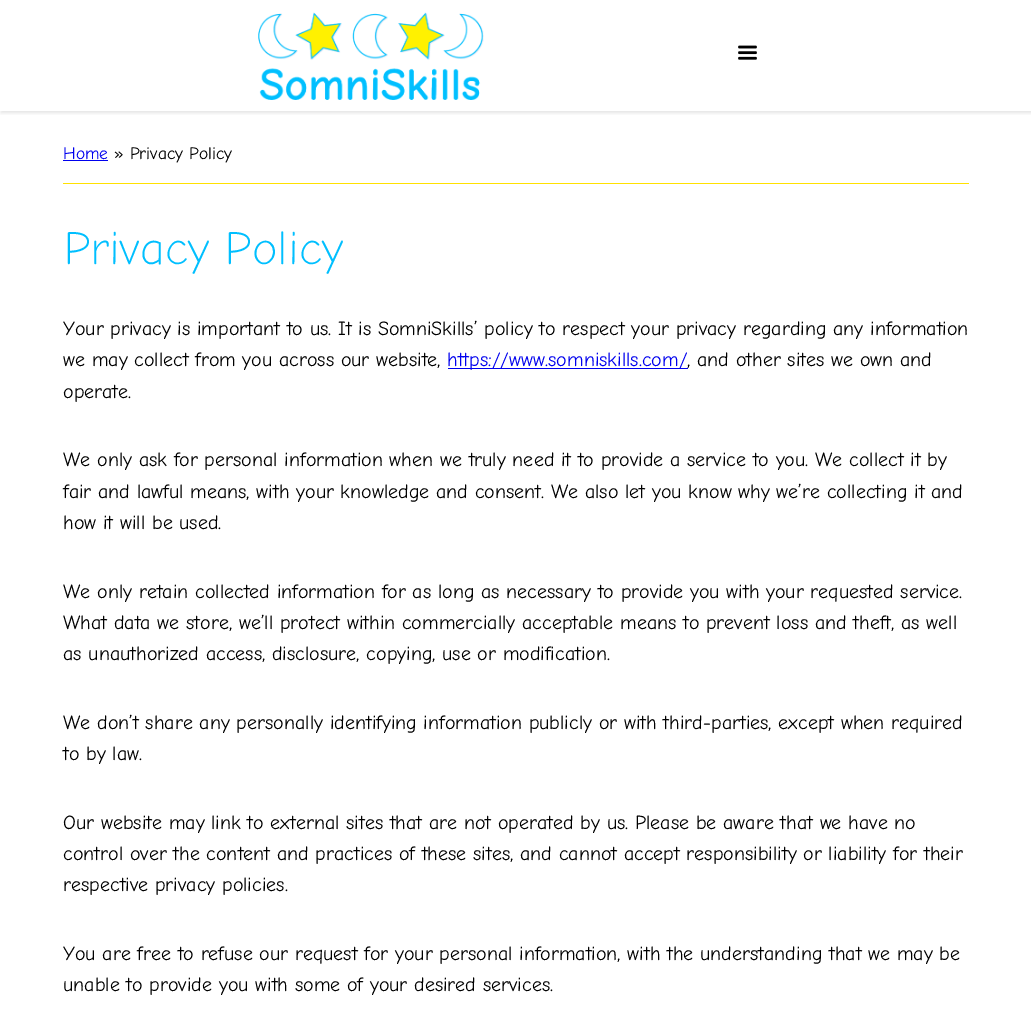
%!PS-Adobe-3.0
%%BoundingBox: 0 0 1031 1035
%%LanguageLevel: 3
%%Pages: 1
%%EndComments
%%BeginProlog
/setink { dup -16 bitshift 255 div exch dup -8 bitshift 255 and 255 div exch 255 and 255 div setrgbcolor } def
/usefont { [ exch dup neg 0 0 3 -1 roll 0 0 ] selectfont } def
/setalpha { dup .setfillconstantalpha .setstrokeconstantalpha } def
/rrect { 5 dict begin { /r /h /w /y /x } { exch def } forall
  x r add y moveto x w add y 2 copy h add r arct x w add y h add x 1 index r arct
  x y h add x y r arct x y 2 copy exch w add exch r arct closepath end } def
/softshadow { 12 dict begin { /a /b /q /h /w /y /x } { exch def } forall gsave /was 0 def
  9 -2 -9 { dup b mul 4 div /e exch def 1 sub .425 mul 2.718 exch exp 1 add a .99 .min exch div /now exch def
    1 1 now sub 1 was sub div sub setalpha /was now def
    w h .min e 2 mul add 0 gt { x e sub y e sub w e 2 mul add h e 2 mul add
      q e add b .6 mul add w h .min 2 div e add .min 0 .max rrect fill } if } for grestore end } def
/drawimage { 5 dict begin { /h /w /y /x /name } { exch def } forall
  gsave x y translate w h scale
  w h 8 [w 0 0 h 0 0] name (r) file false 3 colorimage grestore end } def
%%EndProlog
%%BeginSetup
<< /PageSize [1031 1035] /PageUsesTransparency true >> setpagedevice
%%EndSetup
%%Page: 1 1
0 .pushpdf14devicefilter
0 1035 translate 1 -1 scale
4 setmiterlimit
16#FFFFFF setink
0 0 1031 1035 rectfill
gsave
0 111 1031 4 rectclip
16#000000 setink
1 1 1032 112 0 2 0.11 softshadow
grestore
(img1.raw) 258 12 226 88 drawimage
(img2.raw) 738 45 19 15 drawimage
16#FFE100 setink
63 183 906 1 rectfill
/ComicNeue-Regular 17.5 usefont
16#0000EE setink
63 159 moveto (Home) show
63 160 45 1 rectfill
16#000000 setink
114 159 moveto (» Privacy Policy) show
/ComicNeue-Light 47.5 usefont
16#00BFFF setink
63 264 moveto (Privacy Policy) show
/ComicNeue-Regular 20 usefont
16#000000 setink
63 335 moveto (Your privacy is important to us. It is SomniSkills’ policy to respect your privacy regarding any information) show
63 366 moveto (we may collect from you across our website,) show
16#0000EE setink
448 368 240 1 rectfill
447 366 moveto (https://www.somniskills.com/) show
16#000000 setink
[
    [(, and other sites we own and) 687 366]
    [(operate.) 63 398]
    [(We only ask for personal information when we truly need it to provide a service to you. We collect it by) 63 466]
    [(fair and lawful means, with your knowledge and consent. We also let you know why we’re collecting it and) 63 498]
    [(how it will be used.) 63 529]
    [(We only retain collected information for as long as necessary to provide you with your requested service.) 63 598]
    [(What data we store, we’ll protect within commercially acceptable means to prevent loss and theft, as well) 63 629]
    [(as unauthorized access, disclosure, copying, use or modification.) 63 660]
    [(We don’t share any personally identifying information publicly or with third-parties, except when required) 63 729]
    [(to by law.) 63 760]
    [(Our website may link to external sites that are not operated by us. Please be aware that we have no) 63 829]
    [(control over the content and practices of these sites, and cannot accept responsibility or liability for their) 63 860]
    [(respective privacy policies.) 63 891]
    [(You are free to refuse our request for your personal information, with the understanding that we may be) 63 960]
    [(unable to provide you with some of your desired services.) 63 991]
] { aload pop moveto show } forall
.poppdf14devicefilter showpage
%%EOF
